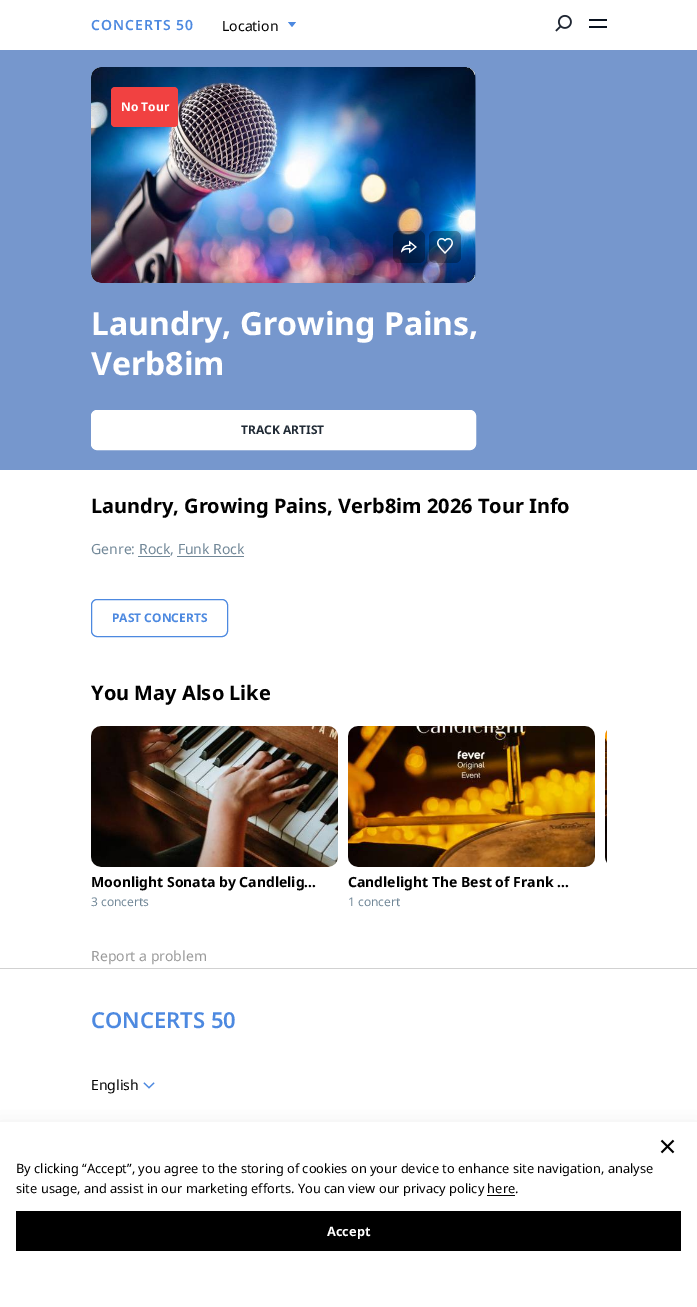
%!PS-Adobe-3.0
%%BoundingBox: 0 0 697 1307
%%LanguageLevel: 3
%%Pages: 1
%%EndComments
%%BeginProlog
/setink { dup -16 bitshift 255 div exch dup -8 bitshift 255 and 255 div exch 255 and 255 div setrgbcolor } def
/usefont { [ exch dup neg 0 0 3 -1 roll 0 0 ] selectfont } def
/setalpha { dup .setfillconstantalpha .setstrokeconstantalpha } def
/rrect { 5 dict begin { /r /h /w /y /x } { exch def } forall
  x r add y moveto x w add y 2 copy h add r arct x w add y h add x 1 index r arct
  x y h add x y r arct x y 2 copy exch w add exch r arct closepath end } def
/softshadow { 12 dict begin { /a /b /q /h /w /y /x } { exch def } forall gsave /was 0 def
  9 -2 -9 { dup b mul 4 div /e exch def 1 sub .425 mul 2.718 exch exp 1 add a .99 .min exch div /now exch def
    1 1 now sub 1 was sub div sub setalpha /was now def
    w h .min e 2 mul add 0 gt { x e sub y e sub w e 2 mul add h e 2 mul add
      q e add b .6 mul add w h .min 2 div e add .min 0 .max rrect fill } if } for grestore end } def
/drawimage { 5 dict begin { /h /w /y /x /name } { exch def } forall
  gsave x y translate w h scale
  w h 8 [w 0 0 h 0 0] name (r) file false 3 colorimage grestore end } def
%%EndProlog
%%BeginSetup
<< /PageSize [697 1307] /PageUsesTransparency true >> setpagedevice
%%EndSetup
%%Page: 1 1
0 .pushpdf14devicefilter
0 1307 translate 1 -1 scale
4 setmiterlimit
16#FFFFFF setink
0 0 697 1307 rectfill
/NotoSans-SemiBold 14 usefont
16#4D89E0 setink
91 30 moveto 1 0 (CONCERTS 50) ashow
/NotoSans-Regular 14 usefont
16#000000 setink
222 31 moveto (Location) show
16#4D89E0 setink
288 22 moveto 296 22 lineto 292 27 lineto closepath fill
(img1.raw) 555 14 17 18 drawimage
(img2.raw) 589 19 18 9 drawimage
16#7697CD setink
0 50 697 420 rectfill
(img3.raw) 91 67 385 216 drawimage
(img4.raw) 91 67 384 216 drawimage
16#F14141 setink
111 87 67 40 4 rrect fill
/NotoSans-Bold 12 usefont
16#FFFFFF setink
121 111 moveto (No Tour) show
0.3 setalpha
16#000000 setink
393 231 32 32 6 rrect fill
1 setalpha
(img5.raw) 401 240 16 14 drawimage
0.3 setalpha
429 231 32 32 6 rrect fill
1 setalpha
(img6.raw) 437 238 16 16 drawimage
/NotoSans-Bold 32 usefont
16#FFFFFF setink
91 335 moveto (Laundry, Growing Pains,) show
91 375 moveto (Verb8im) show
91.5 410.5 384 39 5.5 rrect gsave fill grestore
stroke
/NotoSans-Bold 12 usefont
16#212B36 setink
241 434 moveto (TRACK ARTIST) show
/NotoSans-Bold 20 usefont
16#000000 setink
91 513 moveto (Laundry, Growing Pains, Verb8im 2026 Tour Info) show
/NotoSans-Regular 14 usefont
16#718797 setink
91 554 moveto (Genre: Rock, Funk Rock) show
138 556 32 1 rectfill
177 556 67 1 rectfill
16#4D89E0 setink
91.5 599.5 136 37 5.5 rrect stroke
/NotoSans-Bold 12 usefont
112 622 moveto (PAST CONCERTS) show
/NotoSans-Bold 20 usefont
16#000000 setink
91 700 moveto (You May Also Like) show
(img7.raw) 605 730 2 133 drawimage
(img8.raw) 91 726 247 141 drawimage
/NotoSans-Bold 14 usefont
91 887 moveto (Moonlight Sonata by Candlelig…) show
/NotoSans-Regular 12 usefont
16#718797 setink
91 906 moveto (3 concerts) show
(img9.raw) 348 726 247 141 drawimage
/NotoSans-Bold 14 usefont
16#000000 setink
348 887 moveto (Candlelight The Best of Frank …) show
/NotoSans-Regular 12 usefont
16#718797 setink
348 906 moveto (1 concert) show
/NotoSans-Regular 14 usefont
16#999999 setink
91 961 moveto (Report a problem) show
16#D1D1D1 setink
0 968 697 1 rectfill
/NotoSans-SemiBold 22 usefont
16#4D89E0 setink
91 1028 moveto (CONCERTS 50) show
/NotoSans-Regular 14 usefont
16#000000 setink
91 1090 moveto (English) show
(img10.raw) 143 1082 12 7 drawimage
0 1132 697 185 0 10 0.2 softshadow
16#FFFFFF setink
0 1122 697 185 rectfill
(img11.raw) 660 1139 15 15 drawimage
/NotoSans-Regular 12.8 usefont
16#000000 setink
16 1173 moveto (By clicking “Accept”, you agree to the storing of cookies on your device to enhance site navigation, analyse) show
16 1193 moveto (site usage, and assist in our marketing efforts. You can view our privacy policy here.) show
487 1195 28 1 rectfill
16 1211 665 40 rectfill
/NotoSans-Bold 12.8 usefont
16#FFFFFF setink
327 1236 moveto (Accept) show
.poppdf14devicefilter showpage
%%EOF
